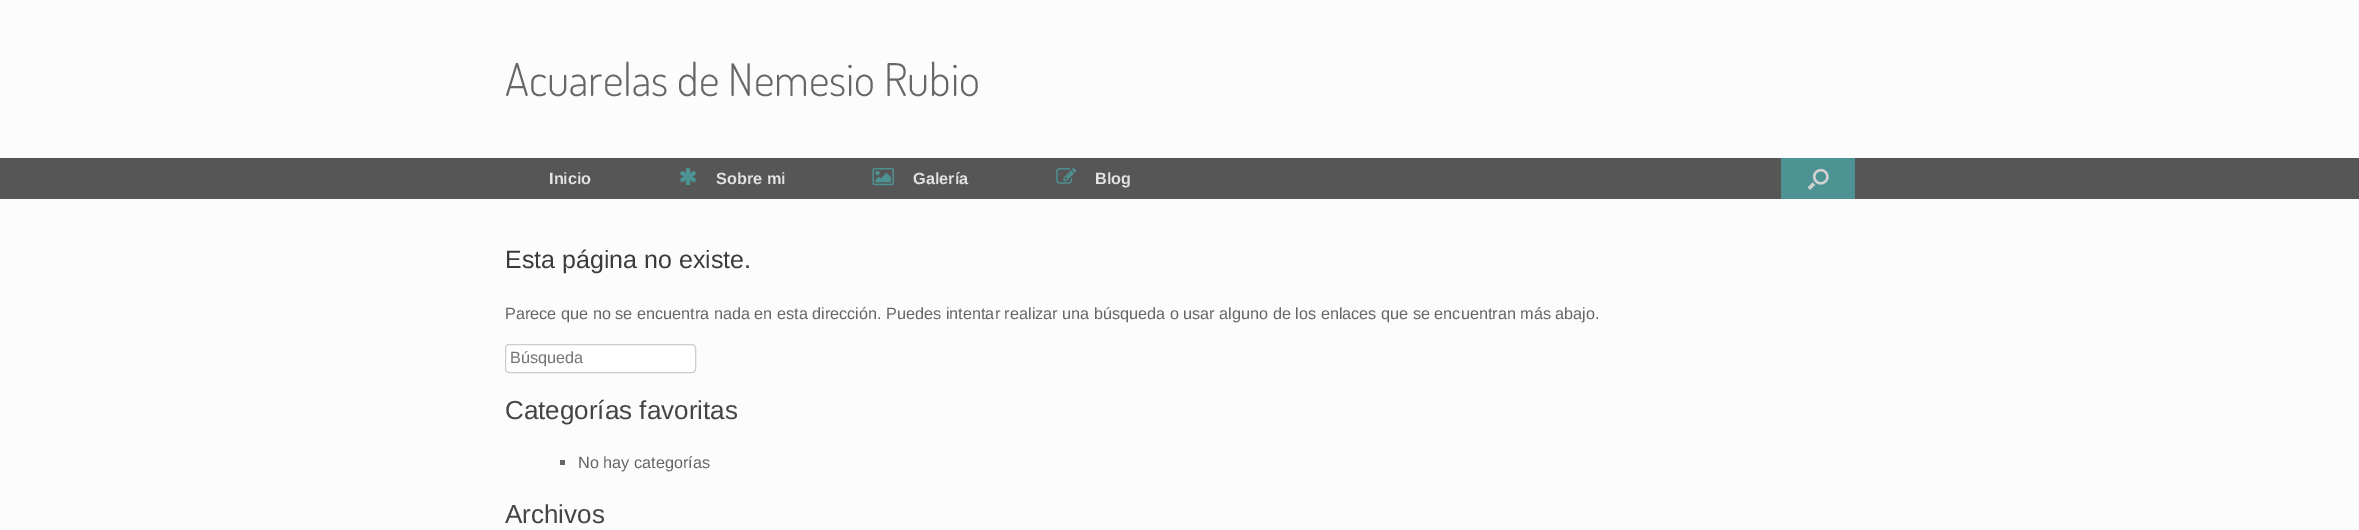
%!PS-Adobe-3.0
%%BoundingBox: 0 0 2359 530
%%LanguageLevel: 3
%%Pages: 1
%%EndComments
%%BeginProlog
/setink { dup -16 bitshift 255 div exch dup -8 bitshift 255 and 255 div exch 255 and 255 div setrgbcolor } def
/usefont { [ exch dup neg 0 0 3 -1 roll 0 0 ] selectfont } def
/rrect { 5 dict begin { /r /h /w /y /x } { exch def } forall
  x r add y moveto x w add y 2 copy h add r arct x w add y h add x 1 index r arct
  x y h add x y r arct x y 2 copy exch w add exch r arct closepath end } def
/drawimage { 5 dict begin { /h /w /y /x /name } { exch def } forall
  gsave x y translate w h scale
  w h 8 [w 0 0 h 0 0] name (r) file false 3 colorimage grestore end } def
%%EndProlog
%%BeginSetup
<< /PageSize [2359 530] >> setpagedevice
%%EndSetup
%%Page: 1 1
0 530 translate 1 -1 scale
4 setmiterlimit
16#FCFCFC setink
0 0 2359 530 rectfill
/Dosis-Light 45 usefont
16#666666 setink
505 96 moveto (Acuarelas de Nemesio Rubio) show
16#565656 setink
0 158 2359 41 rectfill
/LiberationSans-Bold 16.25 usefont
16#E2E2E2 setink
549 184 moveto (Inicio) show
(img1.raw) 680 168 16 18 drawimage
716 184 moveto (Sobre mi) show
(img2.raw) 872 168 22 18 drawimage
913 184 moveto (Galería) show
(img3.raw) 1056 168 21 16 drawimage
1095 184 moveto (Blog) show
16#4E9393 setink
1781 158 74 41 rectfill
(img4.raw) 1807 168 22 22 drawimage
/LiberationSans-Regular 25 usefont
16#3B3B3B setink
505 268 moveto (Esta página no existe.) show
/LiberationSans-Regular 16.25 usefont
16#666666 setink
505 319 moveto (Parece que no se encuentra nada en esta dirección. Puedes intentar realizar una búsqueda o usar alguno de los enlaces que se encuentran más abajo.) show
16#FFFFFF setink
505.5 344.5 190 28 3.5 rrect gsave fill grestore
16#CCCCCC setink
stroke
16#757575 setink
510 363 moveto (Búsqueda) show
/LiberationSans-Regular 26 usefont
16#444444 setink
505 419 moveto (Categorías favoritas) show
16#666666 setink
560 460 5 5 rectfill
/LiberationSans-Regular 16.25 usefont
578 468 moveto (No hay categorías) show
/LiberationSans-Regular 26 usefont
16#444444 setink
505 523 moveto (Archivos) show
showpage
%%EOF
